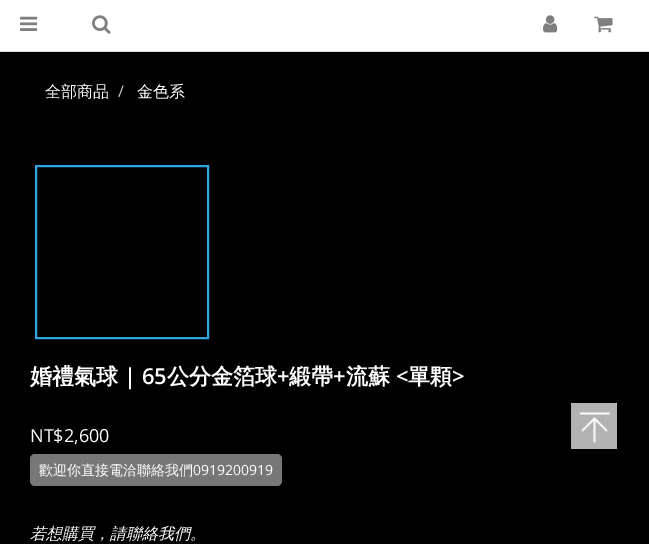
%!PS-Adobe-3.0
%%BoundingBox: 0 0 649 544
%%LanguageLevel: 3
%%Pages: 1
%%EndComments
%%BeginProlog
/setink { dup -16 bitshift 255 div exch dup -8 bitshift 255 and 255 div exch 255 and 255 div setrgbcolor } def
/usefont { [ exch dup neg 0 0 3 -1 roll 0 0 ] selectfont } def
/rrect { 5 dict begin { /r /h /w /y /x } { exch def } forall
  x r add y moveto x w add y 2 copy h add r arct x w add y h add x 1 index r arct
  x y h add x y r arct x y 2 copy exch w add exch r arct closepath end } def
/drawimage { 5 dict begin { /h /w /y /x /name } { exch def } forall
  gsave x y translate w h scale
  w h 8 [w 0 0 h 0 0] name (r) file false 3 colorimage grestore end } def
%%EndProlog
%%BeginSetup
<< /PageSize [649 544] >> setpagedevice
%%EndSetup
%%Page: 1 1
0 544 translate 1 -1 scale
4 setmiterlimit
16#000000 setink
0 0 649 544 rectfill
16#FFFFFF setink
0 0 649 51 rectfill
16#DDDDDD setink
0 51 649 1 rectfill
(img1.raw) 20 16 18 15 drawimage
(img2.raw) 92 15 19 19 drawimage
(img3.raw) 543 15 15 18 drawimage
(img4.raw) 594 16 19 17 drawimage
/WenQuanYiZenHei-Medium 16 usefont
16#FFFFFF setink
45 97 moveto (全部商品) show
/OpenSans-Regular 16 usefont
16#CCCCCC setink
118 97 moveto (/) show
/WenQuanYiZenHei-Medium 16 usefont
16#FFFFFF setink
137 97 moveto (金色系) show
16#30A4E1 setink
2 setlinewidth
36 166 172 172 rectstroke
/WenQuanYiZenHei-Bold 22 usefont
16#FFFFFF setink
30 384 moveto (婚禮氣球) show
/OpenSans-SemiBold 22 usefont
124 384 moveto (| 65) show
/WenQuanYiZenHei-Bold 22 usefont
167 384 moveto (公分金箔球) show
/OpenSans-SemiBold 22 usefont
277 384 moveto (+) show
/WenQuanYiZenHei-Bold 22 usefont
289 384 moveto (緞帶) show
/OpenSans-SemiBold 22 usefont
333 384 moveto (+) show
/WenQuanYiZenHei-Bold 22 usefont
346 384 moveto (流蘇) show
/OpenSans-SemiBold 22 usefont
396 384 moveto (<) show
/WenQuanYiZenHei-Bold 22 usefont
408 384 moveto (單顆) show
/OpenSans-SemiBold 22 usefont
452 384 moveto (>) show
/OpenSans-Regular 18 usefont
30 442 moveto (NT$2,600) show
16#777777 setink
30 454 252 32 5 rrect fill
/WenQuanYiZenHei-Medium 14 usefont
16#FFFFFF setink
39 475 moveto (歡迎你直接電洽聯絡我們) show
/OpenSans-Regular 14 usefont
193 475 moveto (0919200919) show
/WenQuanYiZenHei-MediumItalic 16 usefont
30 539 moveto (若想購買，請聯絡我們。) show
(img5.raw) 571 403 46 46 drawimage
showpage
%%EOF
